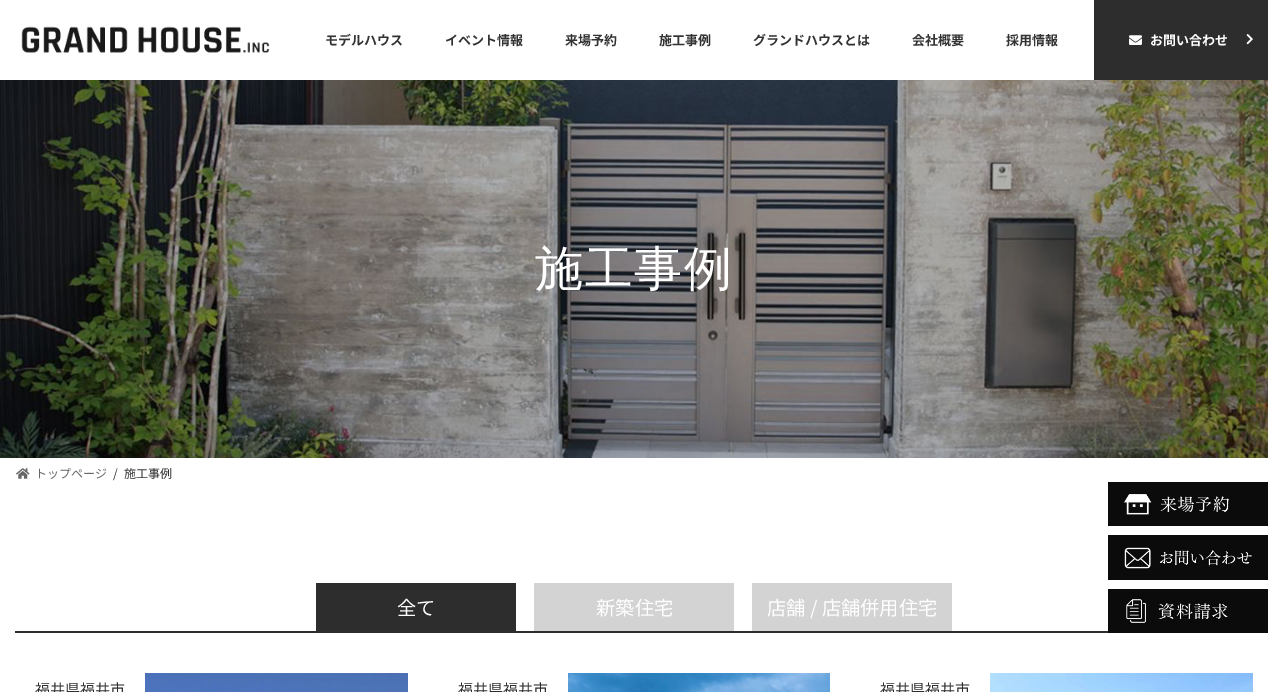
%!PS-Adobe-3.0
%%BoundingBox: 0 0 1268 692
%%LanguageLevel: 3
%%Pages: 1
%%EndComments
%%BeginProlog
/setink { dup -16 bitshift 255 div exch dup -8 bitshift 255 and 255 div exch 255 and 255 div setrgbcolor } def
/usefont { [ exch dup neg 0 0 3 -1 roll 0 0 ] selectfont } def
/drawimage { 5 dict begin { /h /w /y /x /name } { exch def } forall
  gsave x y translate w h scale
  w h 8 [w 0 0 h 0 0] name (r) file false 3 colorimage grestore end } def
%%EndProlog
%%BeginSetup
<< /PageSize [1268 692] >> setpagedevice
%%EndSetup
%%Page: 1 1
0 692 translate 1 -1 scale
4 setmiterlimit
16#FFFFFF setink
0 0 1268 692 rectfill
(img1.raw) 21 26 249 27 drawimage
/NotoSansJP-Bold 13 usefont
16#333333 setink
[
    [(モデルハウス) 325 45]
    [(イベント情報) 445 45]
    [(来場予約) 565 45]
    [(施工事例) 659 45]
    [(グランドハウスとは) 753 45]
    [(会社概要) 912 45]
    [(採用情報) 1006 45]
] { aload pop moveto show } forall
16#2D2D2D setink
1094 0 174 80 rectfill
(img2.raw) 1129 35 13 10 drawimage
16#FFFFFF setink
1150 45 moveto (お問い合わせ) show
(img3.raw) 1246 34 7 11 drawimage
(img4.raw) 0 80 1268 378 drawimage
/WenQuanYiZenHei-Medium 48 usefont
535 285 moveto 1.5 0 (施工事例) ashow
(img5.raw) 16 468 14 11 drawimage
/NotoSansJP-Regular 12 usefont
16#666666 setink
35 478 moveto (トップページ) show
16#333333 setink
113 478 moveto (/) show
124 478 moveto (施工事例) show
(img6.raw) 1108 482 160 44 drawimage
(img7.raw) 1108 535 160 45 drawimage
(img8.raw) 1108 589 160 44 drawimage
16#2D2D2D setink
15 631 1093 2 rectfill
316 583 200 48 rectfill
/NotoSansJP-Regular 19.25 usefont
16#FFFFFF setink
397 615 moveto (全て) show
16#D3D3D3 setink
534 583 200 48 rectfill
16#FFFFFF setink
596 615 moveto (新築住宅) show
16#D3D3D3 setink
752 583 200 48 rectfill
16#FFFFFF setink
767 615 moveto (店舗 / 店舗併用住宅) show
/NotoSansJP-Regular 15 usefont
16#2D2D2D setink
35 695 moveto (福井県福井市) show
(img9.raw) 145 673 263 19 drawimage
458 695 moveto (福井県福井市) show
(img10.raw) 568 673 262 19 drawimage
880 695 moveto (福井県福井市) show
(img11.raw) 990 673 263 19 drawimage
showpage
%%EOF
